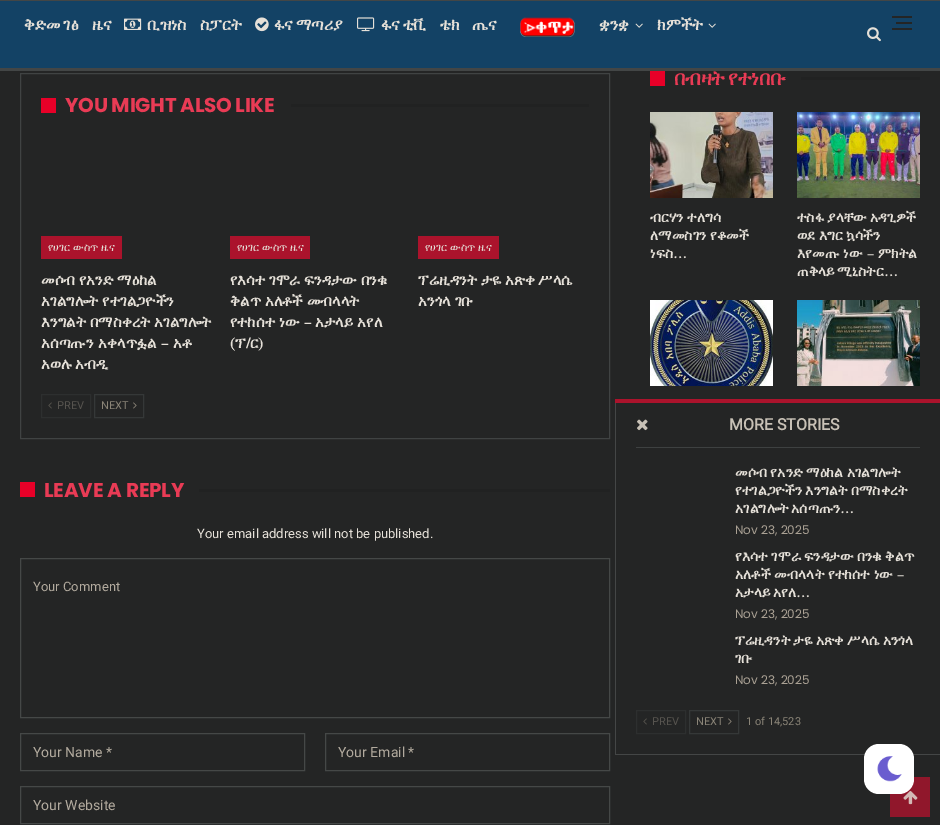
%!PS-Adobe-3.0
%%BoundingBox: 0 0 940 825
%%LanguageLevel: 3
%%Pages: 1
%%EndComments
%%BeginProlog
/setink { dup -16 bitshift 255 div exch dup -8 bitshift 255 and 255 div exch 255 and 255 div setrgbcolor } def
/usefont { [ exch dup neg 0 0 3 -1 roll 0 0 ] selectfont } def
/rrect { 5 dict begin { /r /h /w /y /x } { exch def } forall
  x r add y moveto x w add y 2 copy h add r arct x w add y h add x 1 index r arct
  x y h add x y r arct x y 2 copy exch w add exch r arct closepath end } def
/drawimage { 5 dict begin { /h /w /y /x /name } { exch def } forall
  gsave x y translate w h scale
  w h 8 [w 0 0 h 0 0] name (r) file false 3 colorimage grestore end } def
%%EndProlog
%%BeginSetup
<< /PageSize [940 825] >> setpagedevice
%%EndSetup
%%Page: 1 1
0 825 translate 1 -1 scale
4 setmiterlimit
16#242525 setink
0 0 940 825 rectfill
[
    [0 1 940 67 16#134265]
    [0 0 940 1 16#434646]
    [0 68 940 3 16#434646]
] { aload pop setink rectfill } forall
/FreeSerif-Bold 16 usefont
16#E5E0D8 setink
24 30 moveto -1 0 32 (ቅድመ ገፅ) widthshow
92 30 moveto (ዜና) show
(img1.raw) 124 18 18 12 drawimage
147 30 moveto (ቢዝነስ) show
200 30 moveto (ስፓርት) show
(img2.raw) 255 17 14 15 drawimage
274 30 moveto -1 0 32 (ፋና ማጣሪያ) widthshow
(img3.raw) 357 17 18 15 drawimage
381 30 moveto -1 0 32 (ፋና ቲቪ) widthshow
440 30 moveto (ቴክ) show
472 30 moveto (ጤና) show
(img4.raw) 520 17 55 20 drawimage
599 30 moveto (ቋንቋ) show
(img5.raw) 635 23 8 5 drawimage
657 30 moveto (ክምችት) show
(img5.raw) 708 23 8 5 drawimage
[
    [896 22 16 2 16#242525]
    [892 16 20 2 16#242525]
    [892 28 20 2 16#242525]
] { aload pop setink rectfill } forall
(img6.raw) 867 27 14 15 drawimage
16#404343 setink
20.5 73.5 589 365 rectstroke
16#E80028 setink
41 98 15 15 rectfill
/Poppins-Bold 20 usefont
16#E93B55 setink
65 112 moveto -0.25 0 (YOU MIGHT ALSO LIKE) ashow
16#212222 setink
291 104 298 3 rectfill
16#AB132C setink
41 236 81 23 rectfill
/FreeSerif-Regular 11 usefont
16#E5E0D8 setink
48 251 moveto (የሀገር ውስጥ ዜና) show
/FreeSerif-Bold 15 usefont
[
    [(መሶብ የአንድ ማዕከል) 41 285]
    [(አገልግሎት የተገልጋዮችን) 41 306]
    [(እንግልት በማስቀረት አገልግሎት) 41 327]
] { aload pop moveto show } forall
41 348 moveto 1 0 32 (አሰጣጡን አቀላጥፏል – አቶ) widthshow
41 369 moveto (አወሉ አብዲ) show
16#AB132C setink
230 236 80 23 rectfill
/FreeSerif-Regular 11 usefont
16#E5E0D8 setink
237 251 moveto (የሀገር ውስጥ ዜና) show
/FreeSerif-Bold 15 usefont
230 285 moveto (የእሳተ ገሞራ ፍንዳታው በንቁ) show
230 306 moveto (ቅልጥ አለቶች መብላላት) show
230 327 moveto 0.5 0 32 (የተከሰተ ነው – አታላይ አየለ) widthshow
230 348 moveto (\(ፕ/ር\)) show
16#AB132C setink
418 236 81 23 rectfill
/FreeSerif-Regular 11 usefont
16#E5E0D8 setink
425 251 moveto (የሀገር ውስጥ ዜና) show
/FreeSerif-Bold 15 usefont
418 285 moveto (ፕሬዚዳንት ታዬ አጽቀ ሥላሴ) show
418 306 moveto (አንጎላ ገቡ) show
16#2D2F2F setink
41.5 394.5 49 23 rectstroke
(img7.raw) 48 402 4 7 drawimage
/Roboto-Regular 11 usefont
16#57544F setink
57 409 moveto (PREV) show
16#353838 setink
94.5 394.5 49 23 rectstroke
16#8A8477 setink
101 409 moveto (NEXT) show
(img8.raw) 133 402 4 7 drawimage
16#E80028 setink
20 482 15 15 rectfill
/Poppins-Bold 20 usefont
16#E93B55 setink
44 497 moveto -0.25 0 (LEAVE A REPLY) ashow
16#212222 setink
199 489 411 3 rectfill
/Roboto-Regular 13 usefont
16#E5E0D8 setink
197 538 moveto (Your email address will not be published.) show
16#454847 setink
20.5 558.5 589 159 rectstroke
16#B2AA9E setink
33 591 moveto (Your Comment) show
16#454847 setink
20.5 733.5 284 37 rectstroke
/Roboto-Regular 14 usefont
16#B2AA9E setink
33 757 moveto (Your Name *) show
16#454847 setink
325.5 733.5 284 37 rectstroke
16#B2AA9E setink
338 757 moveto (Your Email *) show
16#454847 setink
20.5 786.5 589 37 rectstroke
16#B2AA9E setink
33 810 moveto (Your Website) show
16#E80028 setink
650 71 15 15 rectfill
/FreeSerif-Bold 20 usefont
16#E93B55 setink
674 85 moveto -1 0 32 -0.25 0 (በብዛት የተነበቡ) awidthshow
16#212222 setink
801 77 119 3 rectfill
(img9.raw) 650 112 123 86 drawimage
/FreeSerif-Bold 14 usefont
16#E5E0D8 setink
[
    [(ብርሃን ተለግሳ) 650 222]
    [(ለማመስገን የቆመች) 650 240]
    [(ነፍስ…) 650 258]
] { aload pop moveto show } forall
(img10.raw) 797 112 123 86 drawimage
797 222 moveto (ተስፋ ያላቸው አዳጊዎች) show
797 240 moveto (ወደ እግር ኳሳችን) show
797 258 moveto 1 0 32 (እየመጡ ነው – ምክትል) widthshow
797 276 moveto -1 0 32 (ጠቅላይ ሚኒስትር…) widthshow
(img11.raw) 650 300 123 86 drawimage
(img12.raw) 797 300 123 86 drawimage
[
    [615 754 325 1 16#444646]
    [615 402 1 353 16#444646]
    [615 399 325 4 16#AB132C]
    [636 447 284 1 16#3E4141]
] { aload pop setink rectfill } forall
(img13.raw) 637 419 11 12 drawimage
/Roboto-Bold 16 usefont
16#C8C1B6 setink
729 430 moveto (MORE STORIES) show
/FreeSerif-Bold 14 usefont
16#E5E0D8 setink
735 477 moveto (መሶብ የአንድ ማዕከል አገልግሎት) show
735 495 moveto (የተገልጋዮችን እንግልት በማስቀረት) show
735 513 moveto -1 0 32 (አገልግሎት አሰጣጡን…) widthshow
/Poppins-Regular 12 usefont
16#AAA194 setink
735 534 moveto (Nov 23, 2025) show
/FreeSerif-Bold 14 usefont
16#E5E0D8 setink
735 561 moveto (የእሳተ ገሞራ ፍንዳታው በንቁ ቅልጥ) show
735 579 moveto 0.5 0 32 (አለቶች መብላላት የተከሰተ ነው –) widthshow
735 597 moveto -1 0 32 (አታላይ አየለ…) widthshow
/Poppins-Regular 12 usefont
16#AAA194 setink
735 618 moveto (Nov 23, 2025) show
/FreeSerif-Bold 14 usefont
16#E5E0D8 setink
735 645 moveto (ፕሬዚዳንት ታዬ አጽቀ ሥላሴ አንጎላ) show
735 663 moveto (ገቡ) show
/Poppins-Regular 12 usefont
16#AAA194 setink
735 684 moveto (Nov 23, 2025) show
16#2D2F2F setink
636.5 710.5 49 23 rectstroke
(img7.raw) 643 718 4 7 drawimage
/Roboto-Regular 11 usefont
16#57544F setink
652 725 moveto (PREV) show
16#353838 setink
689.5 710.5 49 23 rectstroke
16#8A8477 setink
696 725 moveto (NEXT) show
(img8.raw) 728 718 4 7 drawimage
746 725 moveto (1 of 14,523) show
16#90172B setink
890 777 40 40 rectfill
(img15.raw) 903 791 15 14 drawimage
16#FFFFFF setink
864 744 50 50 15 rrect fill
(img14.raw) 877 756 25 26 drawimage
showpage
%%EOF
